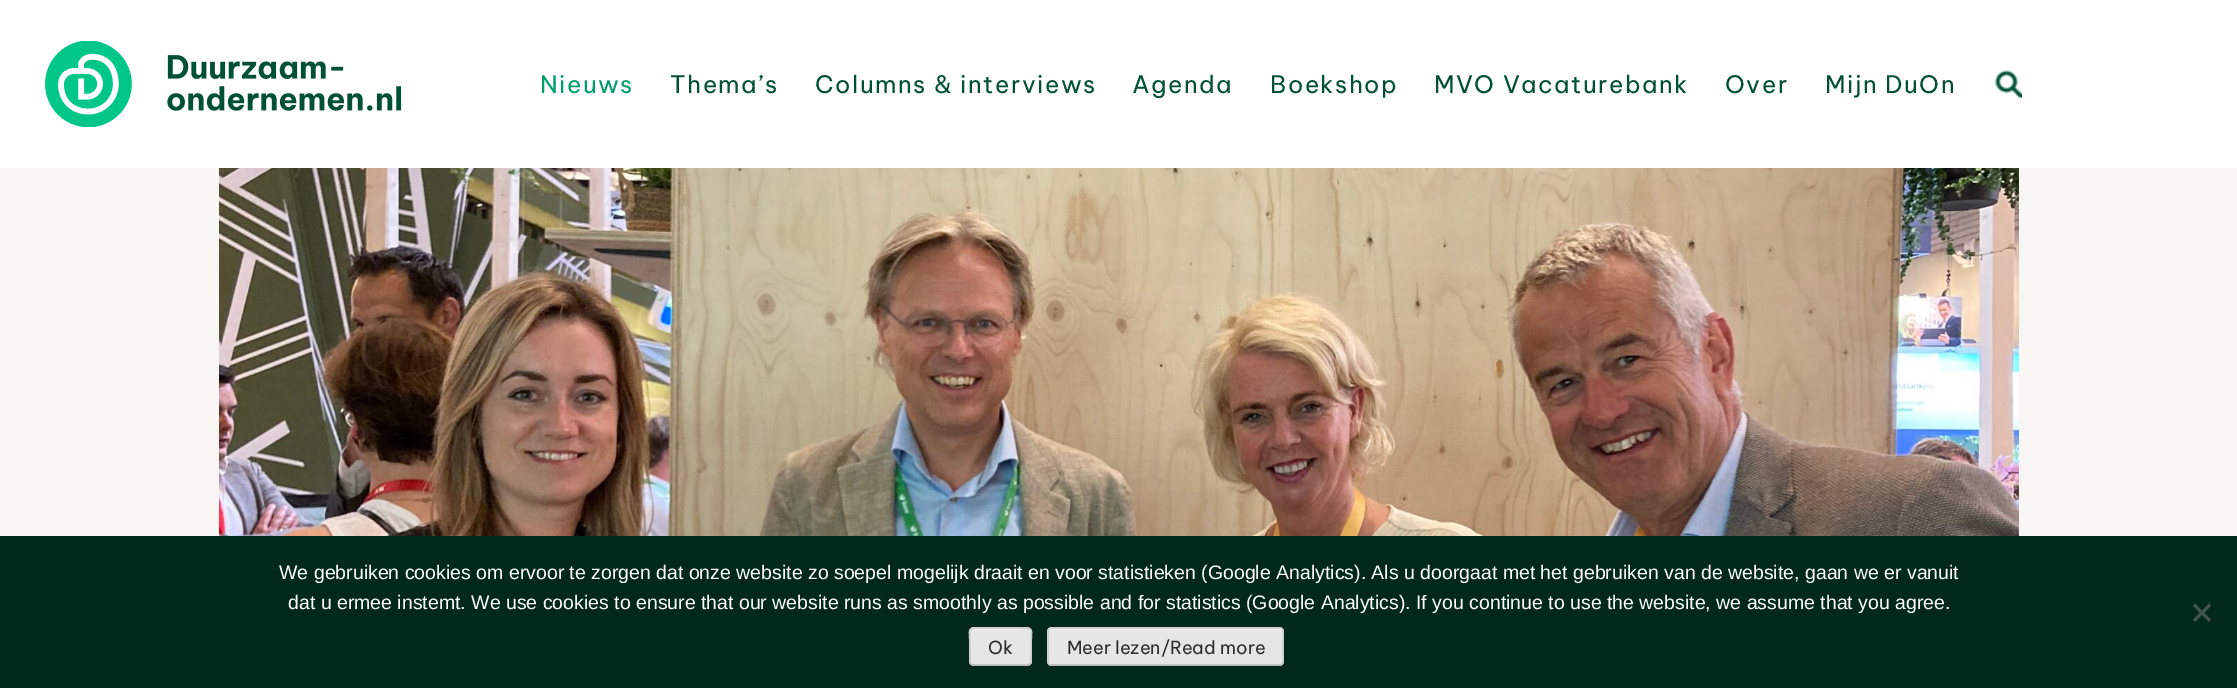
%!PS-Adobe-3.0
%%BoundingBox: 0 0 2237 688
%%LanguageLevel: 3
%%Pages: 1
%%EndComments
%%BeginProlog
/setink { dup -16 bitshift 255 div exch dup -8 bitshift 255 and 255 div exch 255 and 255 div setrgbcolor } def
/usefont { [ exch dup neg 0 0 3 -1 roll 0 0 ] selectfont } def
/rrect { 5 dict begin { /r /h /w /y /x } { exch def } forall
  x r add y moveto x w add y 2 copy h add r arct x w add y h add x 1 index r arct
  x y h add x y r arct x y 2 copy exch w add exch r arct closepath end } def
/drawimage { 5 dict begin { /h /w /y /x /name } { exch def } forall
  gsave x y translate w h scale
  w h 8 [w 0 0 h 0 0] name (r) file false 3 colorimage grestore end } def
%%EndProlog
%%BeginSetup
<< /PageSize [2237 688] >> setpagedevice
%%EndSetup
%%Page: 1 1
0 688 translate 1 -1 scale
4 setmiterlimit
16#F7F6F2 setink
0 0 2237 688 rectfill
16#FFFFFF setink
0 0 2237 168 rectfill
(img1.raw) 45 41 357 86 drawimage
/BeVietnamPro-Regular 24 usefont
16#009F6A setink
540 93 moveto 1.5 0 (Nieuws) ashow
16#005035 setink
670 93 moveto 1.5 0 (Thema’s) ashow
815 93 moveto 1.5 0 (Columns & interviews) ashow
1132 93 moveto 1.5 0 (Agenda) ashow
1270 93 moveto 1.5 0 (Boekshop) ashow
1434 93 moveto 1.5 0 (MVO Vacaturebank) ashow
1725 93 moveto 1.5 0 (Over) ashow
1825 93 moveto 1.5 0 (Mijn DuOn) ashow
(img2.raw) 1995 70 27 28 drawimage
(img3.raw) 219 168 1800 368 drawimage
16#00281B setink
0 536 2237 152 rectfill
/LiberationSans-Regular 19.5 usefont
16#FFFFFF setink
279 579 moveto (We gebruiken cookies om ervoor te zorgen dat onze website zo soepel mogelijk draait en voor statistieken \(Google Analytics\). Als u doorgaat met het gebruiken van de website, gaan we er vanuit) show
288 609 moveto (dat u ermee instemt. We use cookies to ensure that our website runs as smoothly as possible and for statistics \(Google Analytics\). If you continue to use the website, we assume that you agree.) show
16#40544E setink
2209 603.5 moveto 2211 606 lineto 2195 622 lineto 2193 619.5 lineto closepath fill
2193 606 moveto 2195 603.5 lineto 2211 619.5 lineto 2209 622 lineto closepath fill
16#E6E6E6 setink
969 627 63 39 5 rrect fill
16#F3F3F3 setink
974 630 moveto 1010 630 lineto 1032 630 1030 625 1030 643 curveto 1030 664 lineto 1031 664 1031 663 1031 662 curveto 1031 632 lineto 1031 630 1030 629 1028 629 curveto 974 629 lineto 973 629 972 630 971 631 curveto closepath fill
16#BBBBBB setink
1.5 setlinewidth
1030 664 moveto 1028 665 lineto 973 665 lineto 971 664 lineto stroke
16#CCCCCC setink
971 664 moveto 969 662.5 970 658.5 970 656.5 curveto 970 646.5 lineto 970 628 965.5 628 982.5 628 curveto 1018.5 628 lineto 1035.5 628 1031 628 1031 646.5 curveto 1031 656.5 lineto 1031 658.5 1032 662.5 1030 664 curveto stroke
/BeVietnamPro-Regular 18 usefont
16#2E2E2E setink
988 654 moveto (Ok) show
16#E6E6E6 setink
1047 627 237 39 5 rrect fill
16#F3F3F3 setink
1052 630 moveto 1280 630 lineto 1284 630 1282 642 1282 643 curveto 1282 664 lineto 1283 664 1283 663 1283 662 curveto 1283 632 lineto 1283 630 1282 629 1280 629 curveto 1052 629 lineto 1051 629 1050 630 1049 631 curveto closepath fill
16#BBBBBB setink
1282 664 moveto 1281.5 665 1280.5 665 1279.5 665 curveto 1051.5 665 lineto 1050.5 665 1049.5 665 1049 664 curveto stroke
16#CCCCCC setink
1049 664 moveto 1048 663.5 1048 662.5 1048 661.5 curveto 1048 631.5 lineto 1048 630.5 1048 629.5 1049 629 curveto 1049.5 628 1050.5 628 1051.5 628 curveto 1279.5 628 lineto 1280.5 628 1281.5 628 1282 629 curveto 1283 629.5 1283 630.5 1283 631.5 curveto 1283 661.5 lineto 1283 662.5 1283 663.5 1282 664 curveto stroke
16#2E2E2E setink
1067 654 moveto (Meer lezen/Read more) show
showpage
%%EOF
